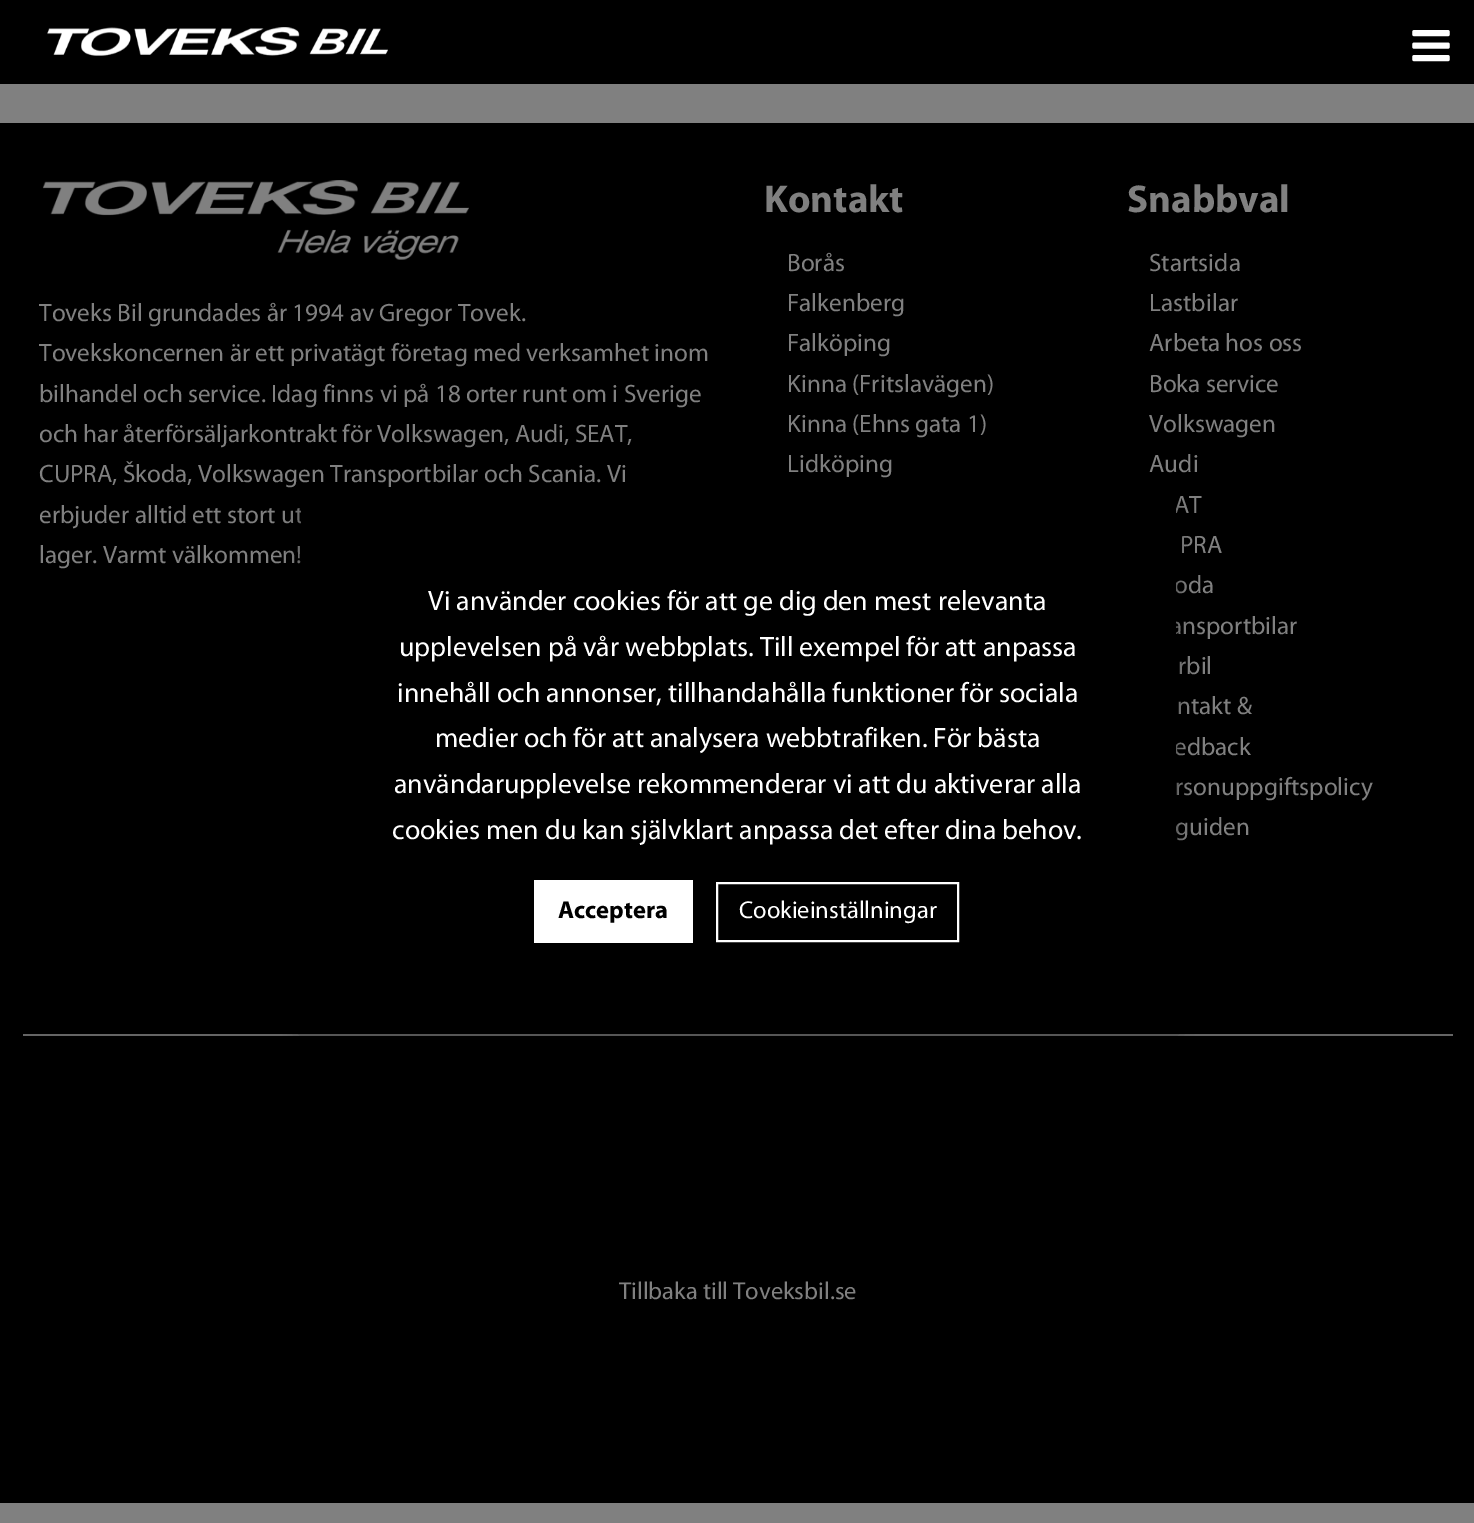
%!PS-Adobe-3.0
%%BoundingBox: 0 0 1474 1523
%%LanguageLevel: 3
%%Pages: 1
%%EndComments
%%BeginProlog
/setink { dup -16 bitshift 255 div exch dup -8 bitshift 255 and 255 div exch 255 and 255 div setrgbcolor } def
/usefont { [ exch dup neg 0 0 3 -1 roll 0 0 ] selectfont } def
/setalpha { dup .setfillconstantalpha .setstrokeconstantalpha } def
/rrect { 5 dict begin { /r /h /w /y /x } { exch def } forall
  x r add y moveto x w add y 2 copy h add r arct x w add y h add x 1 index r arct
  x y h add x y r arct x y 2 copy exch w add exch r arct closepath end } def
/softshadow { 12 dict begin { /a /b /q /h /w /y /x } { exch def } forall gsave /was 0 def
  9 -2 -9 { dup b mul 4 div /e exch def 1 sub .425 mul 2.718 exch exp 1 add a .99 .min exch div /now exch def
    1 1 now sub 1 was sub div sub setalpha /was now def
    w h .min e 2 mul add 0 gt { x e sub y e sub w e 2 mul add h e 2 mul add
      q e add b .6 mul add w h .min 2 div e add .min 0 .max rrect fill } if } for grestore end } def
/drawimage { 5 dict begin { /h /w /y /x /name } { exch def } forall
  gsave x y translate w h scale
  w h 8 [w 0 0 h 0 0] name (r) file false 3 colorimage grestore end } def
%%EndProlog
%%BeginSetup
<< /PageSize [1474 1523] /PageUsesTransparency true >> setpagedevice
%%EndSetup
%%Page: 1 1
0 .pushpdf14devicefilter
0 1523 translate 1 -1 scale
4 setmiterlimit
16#808080 setink
0 0 1474 1523 rectfill
16#000000 setink
0 0 1474 84 rectfill
(img1.raw) 47 27 341 29 drawimage
(img2.raw) 1412 30 38 32 drawimage
0 123 1474 1380 rectfill
(img3.raw) 42 180 427 80 drawimage
/Myriad-Regular 25.2 usefont
16#808080 setink
[
    [(Toveks Bil grundades år 1994 av Gregor Tovek.) 39 321]
    [(Tovekskoncernen är ett privatägt företag med verksamhet inom) 39 361]
    [(bilhandel och service. Idag finns vi på 18 orter runt om i Sverige) 39 402]
    [(och har återförsäljarkontrakt för Volkswagen, Audi, SEAT,) 39 442]
    [(CUPRA, Škoda, Volkswagen Transportbilar och Scania. Vi) 39 482]
    [(erbjuder alltid ett stort ut) 39 523]
    [(lager. Varmt välkommen!) 39 563]
] { aload pop moveto show } forall
/Myriad-Bold 39 usefont
764 212 moveto (Kontakt) show
/Myriad-Regular 25.2 usefont
[
    [(Borås) 787 271]
    [(Falkenberg) 787 311]
    [(Falköping) 787 351]
    [(Kinna \(Fritslavägen\)) 787 392]
    [(Kinna \(Ehns gata 1\)) 787 432]
    [(Lidköping) 787 472]
] { aload pop moveto show } forall
/Myriad-Bold 39 usefont
1127 212 moveto (Snabbval) show
/Myriad-Regular 25.2 usefont
[
    [(Startsida) 1149 271]
    [(Lastbilar) 1149 311]
    [(Arbeta hos oss) 1149 351]
    [(Boka service) 1149 392]
    [(Volkswagen) 1149 432]
    [(Audi) 1149 472]
    [(AT) 1174 513]
    [(PRA) 1180 553]
    [(oda) 1174 593]
    [(ansportbilar) 1170 634]
    [(rbil) 1178 674]
    [(ntakt &) 1177 714]
    [(edback) 1174 755]
    [(rsonuppgiftspolicy) 1175 795]
    [(guiden) 1175 835]
] { aload pop moveto show } forall
16#656565 setink
23 1034 1430 2 rectfill
/Myriad-Regular 24.5 usefont
16#808080 setink
619 1299 moveto (Tillbaka till Toveksbil.se) show
16#000000 setink
301 511 875 520 0 9 0.5 softshadow
301 509 875 322 rectfill
/Myriad-Regular 28 usefont
16#FFFFFF setink
[
    [(Vi använder cookies för att ge dig den mest relevanta) 428 610]
    [(upplevelsen på vår webbplats. Till exempel för att anpassa) 399 656]
    [(innehåll och annonser, tillhandahålla funktioner för sociala) 397 702]
    [(medier och för att analysera webbtrafiken. För bästa) 435 747]
    [(användarupplevelse rekommenderar vi att du aktiverar alla) 394 793]
    [(cookies men du kan självklart anpassa det efter dina behov.) 392 839]
] { aload pop moveto show } forall
534 880 159 63 rectfill
/Myriad-Bold 24.5 usefont
16#000000 setink
558 918 moveto (Acceptera) show
16#FFFFFF setink
2 setlinewidth
717 883 241 58 rectstroke
/Myriad-Regular 24.5 usefont
739 918 moveto (Cookieinställningar) show
.poppdf14devicefilter showpage
%%EOF
